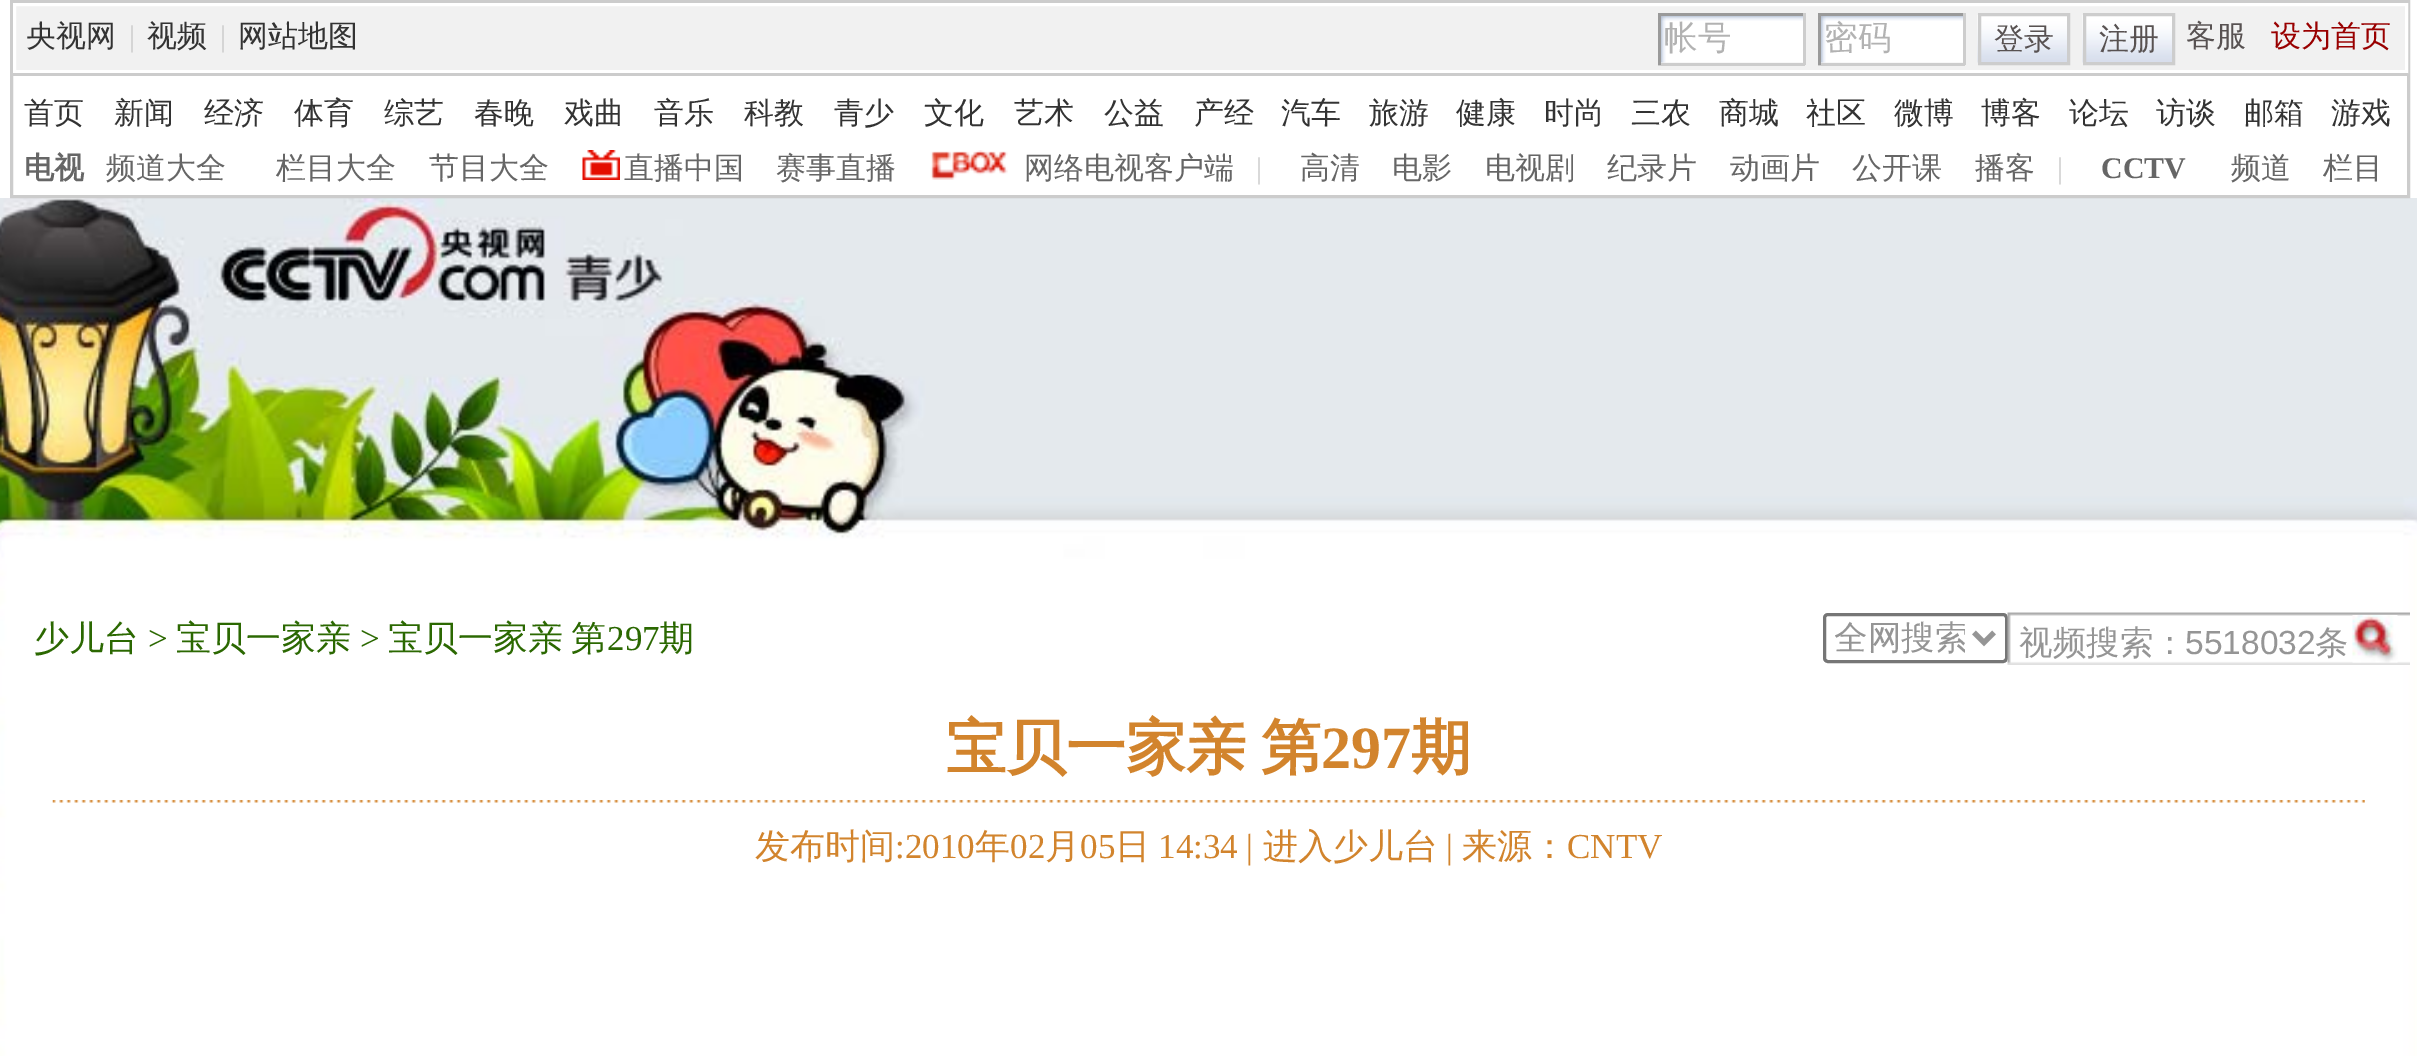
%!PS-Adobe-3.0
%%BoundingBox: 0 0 2417 1056
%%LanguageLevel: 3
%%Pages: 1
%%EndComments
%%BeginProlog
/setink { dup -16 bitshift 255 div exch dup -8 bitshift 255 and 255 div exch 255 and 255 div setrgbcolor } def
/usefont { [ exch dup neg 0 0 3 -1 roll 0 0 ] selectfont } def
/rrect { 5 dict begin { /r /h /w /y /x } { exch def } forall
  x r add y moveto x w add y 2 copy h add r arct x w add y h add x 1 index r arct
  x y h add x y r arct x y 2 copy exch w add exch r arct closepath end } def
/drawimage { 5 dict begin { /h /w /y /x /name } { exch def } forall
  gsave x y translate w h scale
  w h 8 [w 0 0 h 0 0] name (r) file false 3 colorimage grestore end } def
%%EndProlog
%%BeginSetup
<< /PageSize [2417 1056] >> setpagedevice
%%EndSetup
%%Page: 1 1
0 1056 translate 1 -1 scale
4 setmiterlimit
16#FFFFFF setink
0 0 2417 1056 rectfill
(img1.raw) 0 198 2417 858 drawimage
16#CCCCCC setink
3 setlinewidth
11.5 1.5 2397 195 rectstroke
16#F1F1F1 setink
14.5 4.5 moveto 2406.5 4.5 lineto 2406.5 71.5 lineto 14.5 71.5 lineto closepath gsave fill grestore
16#FFFFFF setink
stroke
/WenQuanYiZenHei-Medium 30 usefont
16#333333 setink
26 46 moveto (央视网) show
/LiberationSerif-Regular 30 usefont
16#CCCCCC setink
129 46 moveto (|) show
/WenQuanYiZenHei-Medium 30 usefont
16#333333 setink
147 46 moveto (视频) show
/LiberationSerif-Regular 30 usefont
16#CCCCCC setink
220 46 moveto (|) show
/WenQuanYiZenHei-Medium 30 usefont
16#333333 setink
238 46 moveto (网站地图) show
(img2.raw) 1661 16 142 47 drawimage
[
    [1658 13 147 3 16#9A9A9A]
    [1803 13 3 52 16#CDCDCD]
    [1658 63 147 3 16#CDCDCD]
    [1658 13 3 52 16#9A9A9A]
] { aload pop setink rectfill } forall
/WenQuanYiZenHei-Medium 33.5 usefont
16#B2B2B2 setink
1664 49 moveto (帐号) show
(img3.raw) 1821 16 142 47 drawimage
[
    [1818 13 147 3 16#9A9A9A]
    [1963 13 3 52 16#CDCDCD]
    [1818 63 147 3 16#CDCDCD]
    [1818 13 3 52 16#9A9A9A]
] { aload pop setink rectfill } forall
16#B2B2B2 setink
1824 49 moveto (密码) show
(img4.raw) 1977 15 90 48 drawimage
16#CDCDCD setink
1979.5 14.5 89 49 rectstroke
/WenQuanYiZenHei-Medium 30 usefont
16#585252 setink
1994 49 moveto (登录) show
(img4.raw) 2082 15 90 48 drawimage
16#CDCDCD setink
2084.5 14.5 89 49 rectstroke
16#585252 setink
2099 49 moveto (注册) show
2186 46 moveto (客服) show
16#990000 setink
2271 46 moveto (设为首页) show
16#CCCCCC setink
13 73 2395 3 rectfill
16#333333 setink
[
    [(首页) 24 123]
    [(新闻) 114 123]
    [(经济) 204 123]
    [(体育) 294 123]
    [(综艺) 384 123]
    [(春晚) 474 123]
    [(戏曲) 564 123]
    [(音乐) 654 123]
    [(科教) 744 123]
    [(青少) 834 123]
    [(文化) 924 123]
    [(艺术) 1014 123]
    [(公益) 1104 123]
    [(产经) 1194 123]
    [(汽车) 1281 123]
    [(旅游) 1369 123]
    [(健康) 1456 123]
    [(时尚) 1544 123]
    [(三农) 1631 123]
    [(商城) 1719 123]
    [(社区) 1806 123]
    [(微博) 1894 123]
    [(博客) 1981 123]
    [(论坛) 2069 123]
    [(访谈) 2156 123]
    [(邮箱) 2244 123]
    [(游戏) 2331 123]
] { aload pop moveto show } forall
/WenQuanYiZenHei-Bold 30 usefont
16#666666 setink
24 178 moveto (电视) show
/WenQuanYiZenHei-Medium 30 usefont
[
    [(频道大全) 106 178]
    [(栏目大全) 276 178]
    [(节目大全) 429 178]
] { aload pop moveto show } forall
(img5.raw) 582 150 38 30 drawimage
624 178 moveto (直播中国) show
776 178 moveto (赛事直播) show
(img6.raw) 930 150 78 30 drawimage
1024 178 moveto (网络电视客户端) show
/LiberationSerif-Regular 30 usefont
16#CCCCCC setink
1256 178 moveto (|) show
/WenQuanYiZenHei-Medium 30 usefont
16#666666 setink
[
    [(高清) 1300 178]
    [(电影) 1392 178]
    [(电视剧) 1485 178]
    [(纪录片) 1607 178]
    [(动画片) 1730 178]
    [(公开课) 1852 178]
    [(播客) 1975 178]
] { aload pop moveto show } forall
/LiberationSerif-Regular 30 usefont
16#CCCCCC setink
2057 178 moveto (|) show
/LiberationSerif-Bold 30 usefont
16#666666 setink
2101 178 moveto (CCTV) show
/WenQuanYiZenHei-Medium 30 usefont
2231 178 moveto (频道) show
2323 178 moveto (栏目) show
/WenQuanYiZenHei-Medium 35 usefont
16#2B6801 setink
34 650 moveto (少儿台) show
/LiberationSerif-Regular 35 usefont
148 650 moveto (>) show
/WenQuanYiZenHei-Medium 35 usefont
176 650 moveto (宝贝一家亲) show
/LiberationSerif-Regular 35 usefont
360 650 moveto (>) show
/WenQuanYiZenHei-Medium 35 usefont
388 650 moveto -2 0 32 (宝贝一家亲 第) widthshow
/LiberationSerif-Regular 35 usefont
607 650 moveto (297) show
/WenQuanYiZenHei-Medium 35 usefont
659 650 moveto (期) show
16#767676 setink
1824.5 614.5 182 47 3.5 rrect stroke
16#959595 setink
5 setlinewidth
1974 632.5 moveto 1984 642.5 lineto 1994 632.5 lineto stroke
gsave
1835 618 130 42 rectclip
/WenQuanYiZenHei-Medium 33.5 usefont
1834 649 moveto (全网搜索) show
grestore
(img7.raw) 2007 612 403 53 drawimage
/WenQuanYiZenHei-Medium 33.5 usefont
2019 654 moveto (视频搜索：) show
/LiberationSans-Regular 33.5 usefont
2185 654 moveto (5518032) show
/WenQuanYiZenHei-Medium 33.5 usefont
2315 654 moveto (条) show
(img8.raw) 2352 615 46 48 drawimage
(img9.raw) 52 800 2313 3 drawimage
/WenQuanYiZenHei-Bold 60 usefont
16#D2842D setink
946 768 moveto -3 0 32 (宝贝一家亲 第) widthshow
/LiberationSerif-Bold 60 usefont
1321 768 moveto (297) show
/WenQuanYiZenHei-Bold 60 usefont
1411 768 moveto (期) show
/WenQuanYiZenHei-Medium 35 usefont
755 858 moveto (发布时间) show
/LiberationSerif-Regular 35 usefont
895 858 moveto (:2010) show
/WenQuanYiZenHei-Medium 35 usefont
975 858 moveto (年) show
/LiberationSerif-Regular 35 usefont
1010 858 moveto (02) show
/WenQuanYiZenHei-Medium 35 usefont
1045 858 moveto (月) show
/LiberationSerif-Regular 35 usefont
1080 858 moveto (05) show
/WenQuanYiZenHei-Medium 35 usefont
1115 858 moveto (日) show
/LiberationSerif-Regular 35 usefont
1158 858 moveto (14:34 |) show
/WenQuanYiZenHei-Medium 35 usefont
1263 858 moveto (进入少儿台) show
/LiberationSerif-Regular 35 usefont
1446 858 moveto (|) show
/WenQuanYiZenHei-Medium 35 usefont
1462 858 moveto (来源：) show
/LiberationSerif-Regular 35 usefont
1567 858 moveto (CNTV) show
showpage
%%EOF
